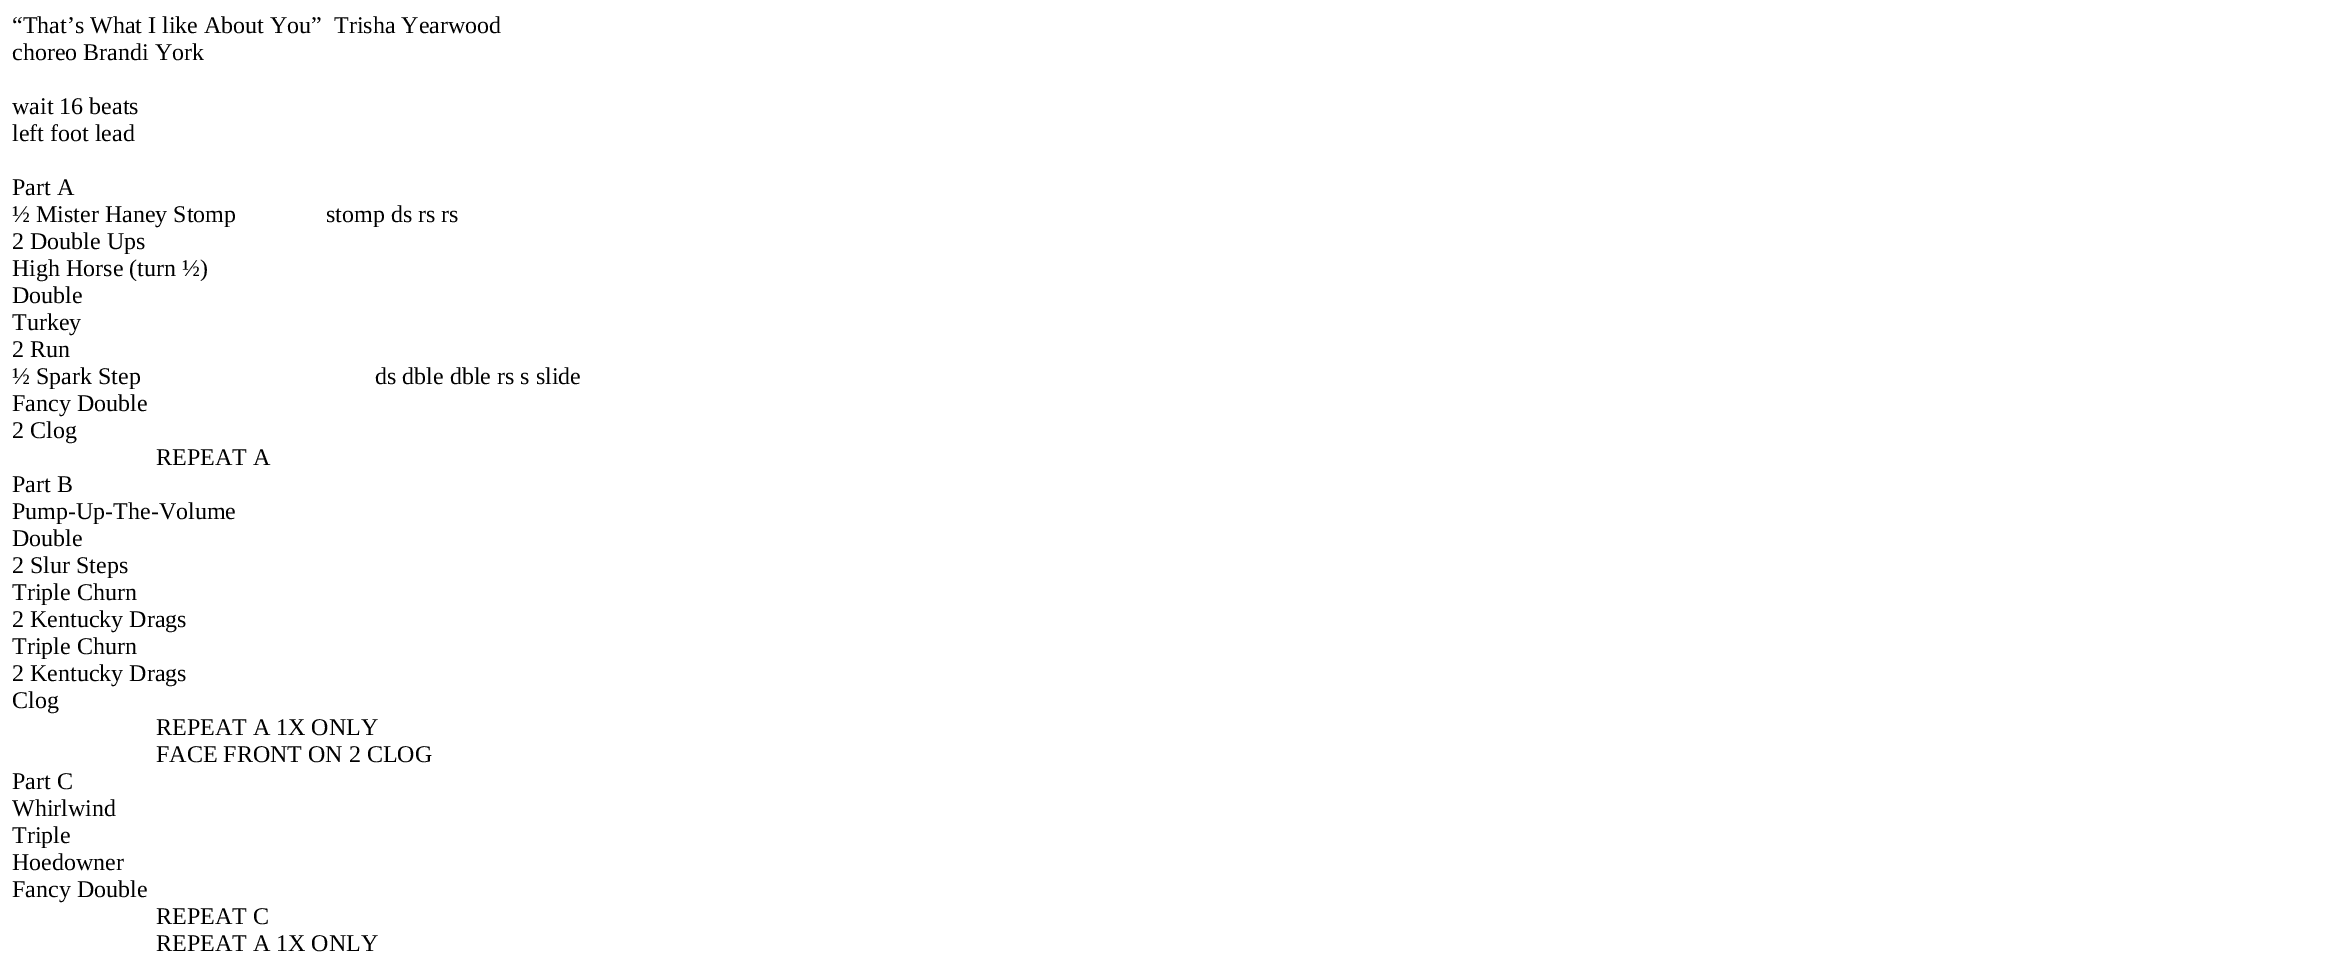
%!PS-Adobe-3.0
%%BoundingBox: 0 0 2352 957
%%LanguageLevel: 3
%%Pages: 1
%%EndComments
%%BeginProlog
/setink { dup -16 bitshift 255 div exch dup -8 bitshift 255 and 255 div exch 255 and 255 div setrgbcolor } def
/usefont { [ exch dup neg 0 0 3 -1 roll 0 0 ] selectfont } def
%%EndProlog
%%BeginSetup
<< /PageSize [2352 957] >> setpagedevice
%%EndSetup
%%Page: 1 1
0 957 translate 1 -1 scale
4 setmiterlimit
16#FFFFFF setink
0 0 2352 957 rectfill
/LiberationSerif-Regular 24 usefont
16#000000 setink
[
    [(“That’s What I like About You”) 12 33]
    [(Trisha Yearwood) 334 33]
    [(choreo Brandi York) 12 60]
    [(wait 16 beats) 12 114]
    [(left foot lead) 12 141]
    [(Part A) 12 195]
    [(½ Mister Haney Stomp) 12 222]
    [(stomp ds rs rs) 326 222]
    [(2 Double Ups) 12 249]
    [(High Horse \(turn ½\)) 12 276]
    [(Double) 12 303]
    [(Turkey) 12 330]
    [(2 Run) 12 357]
    [(½ Spark Step) 12 384]
    [(ds dble dble rs s slide) 375 384]
    [(Fancy Double) 12 411]
    [(2 Clog) 12 438]
    [(REPEAT A) 156 465]
    [(Part B) 12 492]
    [(Pump-Up-The-Volume) 12 519]
    [(Double) 12 546]
    [(2 Slur Steps) 12 573]
    [(Triple Churn) 12 600]
    [(2 Kentucky Drags) 12 627]
    [(Triple Churn) 12 654]
    [(2 Kentucky Drags) 12 681]
    [(Clog) 12 708]
    [(REPEAT A 1X ONLY) 156 735]
    [(FACE FRONT ON 2 CLOG) 156 762]
    [(Part C) 12 789]
    [(Whirlwind) 12 816]
    [(Triple) 12 843]
    [(Hoedowner) 12 870]
    [(Fancy Double) 12 897]
    [(REPEAT C) 156 924]
    [(REPEAT A 1X ONLY) 156 951]
] { aload pop moveto show } forall
showpage
%%EOF
